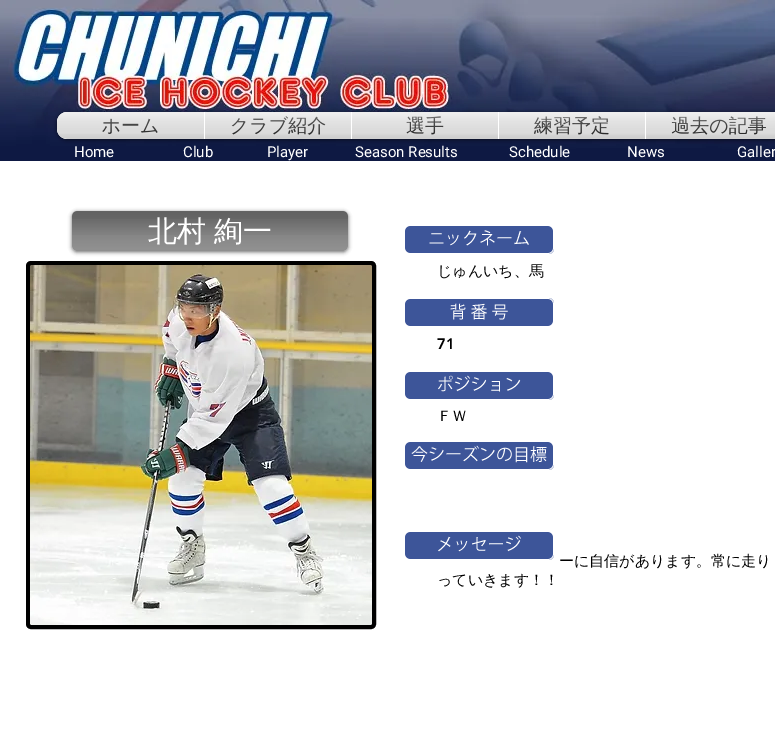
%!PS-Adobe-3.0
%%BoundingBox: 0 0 775 743
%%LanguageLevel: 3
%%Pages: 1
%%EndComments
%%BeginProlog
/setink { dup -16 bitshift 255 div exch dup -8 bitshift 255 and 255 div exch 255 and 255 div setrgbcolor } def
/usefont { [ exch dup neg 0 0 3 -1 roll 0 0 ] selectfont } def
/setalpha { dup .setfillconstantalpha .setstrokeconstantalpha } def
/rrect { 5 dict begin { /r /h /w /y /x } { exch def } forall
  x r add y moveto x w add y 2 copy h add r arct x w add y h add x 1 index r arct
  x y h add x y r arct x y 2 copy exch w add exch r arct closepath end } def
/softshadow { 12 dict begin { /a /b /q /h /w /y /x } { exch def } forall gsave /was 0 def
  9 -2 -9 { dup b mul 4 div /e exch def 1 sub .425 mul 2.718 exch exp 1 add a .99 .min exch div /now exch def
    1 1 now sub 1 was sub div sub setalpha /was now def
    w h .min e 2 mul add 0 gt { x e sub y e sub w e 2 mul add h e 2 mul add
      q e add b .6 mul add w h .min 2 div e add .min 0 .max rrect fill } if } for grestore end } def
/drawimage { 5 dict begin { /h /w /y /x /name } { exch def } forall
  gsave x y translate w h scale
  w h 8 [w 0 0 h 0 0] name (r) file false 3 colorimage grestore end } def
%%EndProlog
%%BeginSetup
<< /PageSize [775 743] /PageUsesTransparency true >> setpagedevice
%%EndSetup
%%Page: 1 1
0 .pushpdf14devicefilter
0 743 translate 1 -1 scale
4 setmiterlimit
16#FFFFFF setink
0 0 775 743 rectfill
(img1.raw) 0 0 775 161 drawimage
16#000000 setink
57 113 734 27 10 2 0.6 softshadow
(img2.raw) 57 112 10 27 drawimage
(img3.raw) 57 112 10 27 drawimage
16#F1F1F1 setink
67 112 moveto 204 112 lineto 204 139 lineto 67 139 lineto 61.5 139 57 134.5 57 129 curveto 57 122 lineto 57 116.5 61.5 112 67 112 curveto closepath fill
/WenQuanYiZenHei-Medium 19 usefont
16#000000 setink
102 132 moveto (ホーム) show
(img4.raw) 57 112 147 22 drawimage
(img5.raw) 57 112 147 27 drawimage
16#F1F1F1 setink
205 112 146 27 rectfill
16#FFFFFF setink
204 112 1 27 rectfill
16#000000 setink
230 132 moveto (クラブ紹介) show
(img6.raw) 205 112 146 23 drawimage
(img7.raw) 205 112 146 27 drawimage
16#F1F1F1 setink
352 112 146 27 rectfill
16#FFFFFF setink
351 112 1 27 rectfill
16#000000 setink
406 132 moveto (選手) show
(img8.raw) 352 112 146 23 drawimage
(img9.raw) 352 112 146 27 drawimage
16#F1F1F1 setink
499 112 146 27 rectfill
16#FFFFFF setink
498 112 1 27 rectfill
16#000000 setink
534 132 moveto (練習予定) show
(img10.raw) 499 112 146 23 drawimage
(img11.raw) 499 112 146 27 drawimage
16#F1F1F1 setink
646 112 129 27 rectfill
16#FFFFFF setink
645 112 1 27 rectfill
16#000000 setink
671 132 moveto (過去の記事) show
(img12.raw) 646 112 129 23 drawimage
(img13.raw) 646 112 129 27 drawimage
/Roboto-Regular 15 usefont
16#FFFFFF setink
[
    [(Home) 74 157]
    [(Club) 183 157]
    [(Player) 267 157]
    [(Season Results) 355 157]
    [(Schedule) 509 157]
    [(News) 627 157]
    [(Galler) 737 157]
] { aload pop moveto show } forall
16#000000 setink
72 212 276 40 5 2 0.6 softshadow
16#757575 setink
72 211 276 40 5 rrect fill
(img14.raw) 72 211 276 24 drawimage
(img15.raw) 72 219 276 32 drawimage
/WenQuanYiZenHei-Medium 29 usefont
16#FFFFFF setink
148 241 moveto -1 0 32 (北村 絢一) widthshow
(img16.raw) 405 226 149 28 drawimage
16#000000 setink
28 263 346 364 3 rrect gsave fill grestore
4 setlinewidth
stroke
(img17.raw) 30 265 342 360 drawimage
/WenQuanYiZenHei-Medium 15 usefont
437 276 moveto (じゅんいち、馬) show
/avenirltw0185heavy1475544-Black 15 usefont
437 349 moveto (71) show
/WenQuanYiZenHei-Medium 15 usefont
[
    [(ＦＷ) 437 421]
    [(ーに自信があります。常に走り) 559 566]
    [(っていきます！！) 437 585]
] { aload pop moveto show } forall
(img18.raw) 405 298 149 28 drawimage
(img19.raw) 405 372 149 28 drawimage
(img20.raw) 405 442 149 28 drawimage
(img21.raw) 405 532 149 28 drawimage
.poppdf14devicefilter showpage
%%EOF
